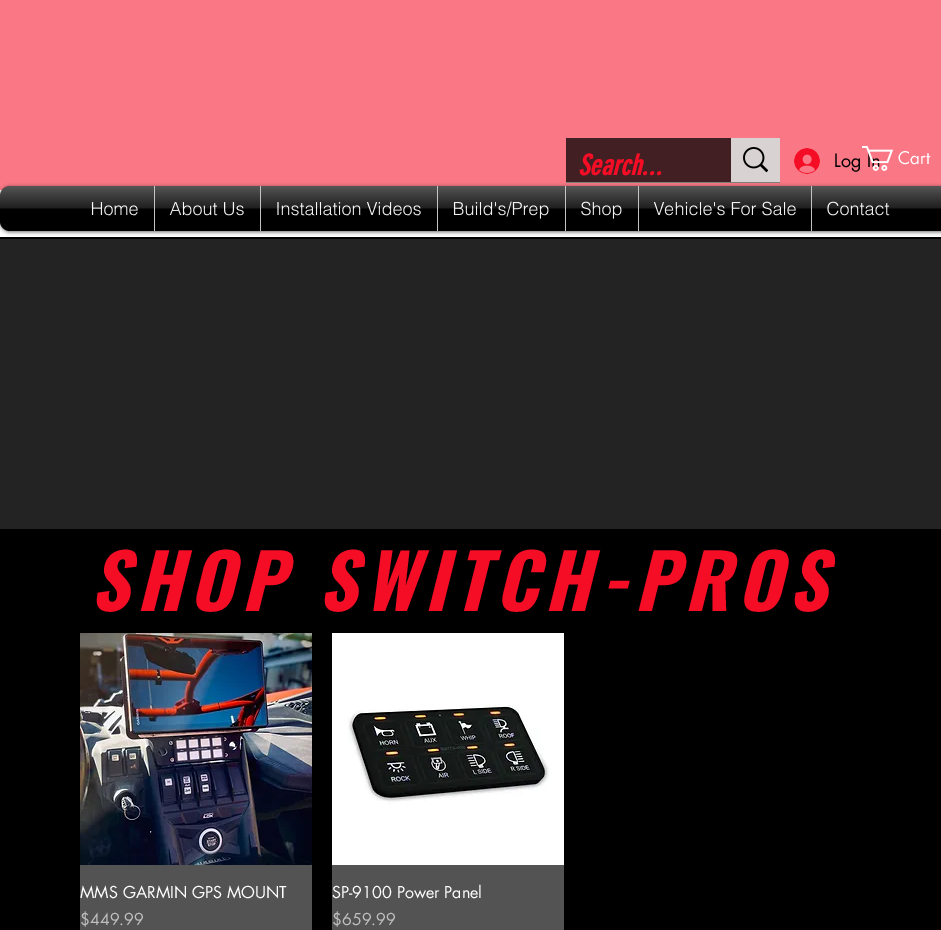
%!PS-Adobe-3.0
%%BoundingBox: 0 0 941 930
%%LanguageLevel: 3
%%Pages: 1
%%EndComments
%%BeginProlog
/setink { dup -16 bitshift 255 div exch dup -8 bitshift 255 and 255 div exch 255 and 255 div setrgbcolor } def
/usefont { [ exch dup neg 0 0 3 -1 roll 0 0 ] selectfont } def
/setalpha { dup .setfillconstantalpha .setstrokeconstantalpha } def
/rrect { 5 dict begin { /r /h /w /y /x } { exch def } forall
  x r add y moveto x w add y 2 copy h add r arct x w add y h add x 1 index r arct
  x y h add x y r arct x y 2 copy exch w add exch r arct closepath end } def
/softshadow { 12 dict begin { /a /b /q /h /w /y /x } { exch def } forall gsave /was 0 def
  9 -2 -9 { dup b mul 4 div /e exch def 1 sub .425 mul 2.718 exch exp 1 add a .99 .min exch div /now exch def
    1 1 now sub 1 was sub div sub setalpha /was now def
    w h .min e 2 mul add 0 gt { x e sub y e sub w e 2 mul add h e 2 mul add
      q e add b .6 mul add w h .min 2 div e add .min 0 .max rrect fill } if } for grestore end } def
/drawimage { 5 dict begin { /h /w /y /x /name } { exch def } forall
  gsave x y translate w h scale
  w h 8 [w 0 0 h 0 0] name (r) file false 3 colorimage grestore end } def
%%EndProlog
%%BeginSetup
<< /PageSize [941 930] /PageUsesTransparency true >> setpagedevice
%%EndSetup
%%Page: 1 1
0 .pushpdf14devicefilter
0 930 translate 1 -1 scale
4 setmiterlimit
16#000000 setink
0 0 941 930 rectfill
[
    [0 0 941 190 16#FA7785]
    [566 182 214 1 16#808080]
    [566 138 165 44 16#411F23]
] { aload pop setink rectfill } forall
/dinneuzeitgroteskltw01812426-BoldItalic 28 usefont
16#F50C25 setink
578 175 moveto (Search...) show
16#D9D2D3 setink
731 138 49 44 rectfill
(img1.raw) 743 147 25 26 drawimage
(img2.raw) 794 148 26 26 drawimage
/futura-Regular 18 usefont
16#000000 setink
834 167 moveto (Log In) show
(img3.raw) 862 146 32 25 drawimage
/futura-Regular 17 usefont
16#FFFFFF setink
898 164 moveto (Cart) show
0 190 941 47 rectfill
16#000000 setink
0 187 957 45 10 2 0.6 softshadow
0 186 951 45 10 rrect fill
(img4.raw) 0 186 941 23 drawimage
76 186 78 23 rectfill
/helvetica-Bold 18 usefont
16#FFFFFF setink
91 215 moveto (Home) show
(img5.raw) 76 186 78 29 drawimage
16#000000 setink
155 186 105 23 rectfill
16#C4C4C4 setink
154 186 1 45 rectfill
16#FFFFFF setink
170 215 moveto (About Us) show
(img6.raw) 155 186 105 30 drawimage
16#000000 setink
261 186 176 23 rectfill
16#C4C4C4 setink
260 186 1 45 rectfill
16#FFFFFF setink
276 215 moveto (Installation Videos) show
(img7.raw) 261 186 176 29 drawimage
16#000000 setink
438 186 127 23 rectfill
16#C4C4C4 setink
437 186 1 45 rectfill
16#FFFFFF setink
453 215 moveto (Build's/Prep) show
(img8.raw) 438 186 127 33 drawimage
16#000000 setink
566 186 72 23 rectfill
16#C4C4C4 setink
565 186 1 45 rectfill
16#FFFFFF setink
581 215 moveto (Shop) show
(img9.raw) 566 186 72 33 drawimage
16#000000 setink
639 186 172 23 rectfill
16#C4C4C4 setink
638 186 1 45 rectfill
16#FFFFFF setink
654 215 moveto (Vehicle's For Sale) show
(img10.raw) 639 186 172 30 drawimage
16#000000 setink
812 186 93 23 rectfill
16#C4C4C4 setink
811 186 1 45 rectfill
16#FFFFFF setink
827 215 moveto (Contact) show
(img11.raw) 812 186 93 30 drawimage
16#242323 setink
0 239 941 290 rectfill
/Oswald-BoldItalic 75 usefont
16#F50C25 setink
90 611 moveto 7.5 0 (SHOP SWITCH-PROS) ashow
16#535353 setink
80 865 232 65 rectfill
(img12.raw) 80 633 232 232 drawimage
/futura-Regular 16 usefont
16#FFFFFF setink
80 898 moveto (MMS GARMIN GPS MOUNT) show
16#BFBFBF setink
80 925 moveto ($449.99) show
16#535353 setink
332 865 232 65 rectfill
(img13.raw) 332 633 232 232 drawimage
16#FFFFFF setink
332 898 moveto (SP-9100 Power Panel) show
16#BFBFBF setink
332 925 moveto ($659.99) show
.poppdf14devicefilter showpage
%%EOF
